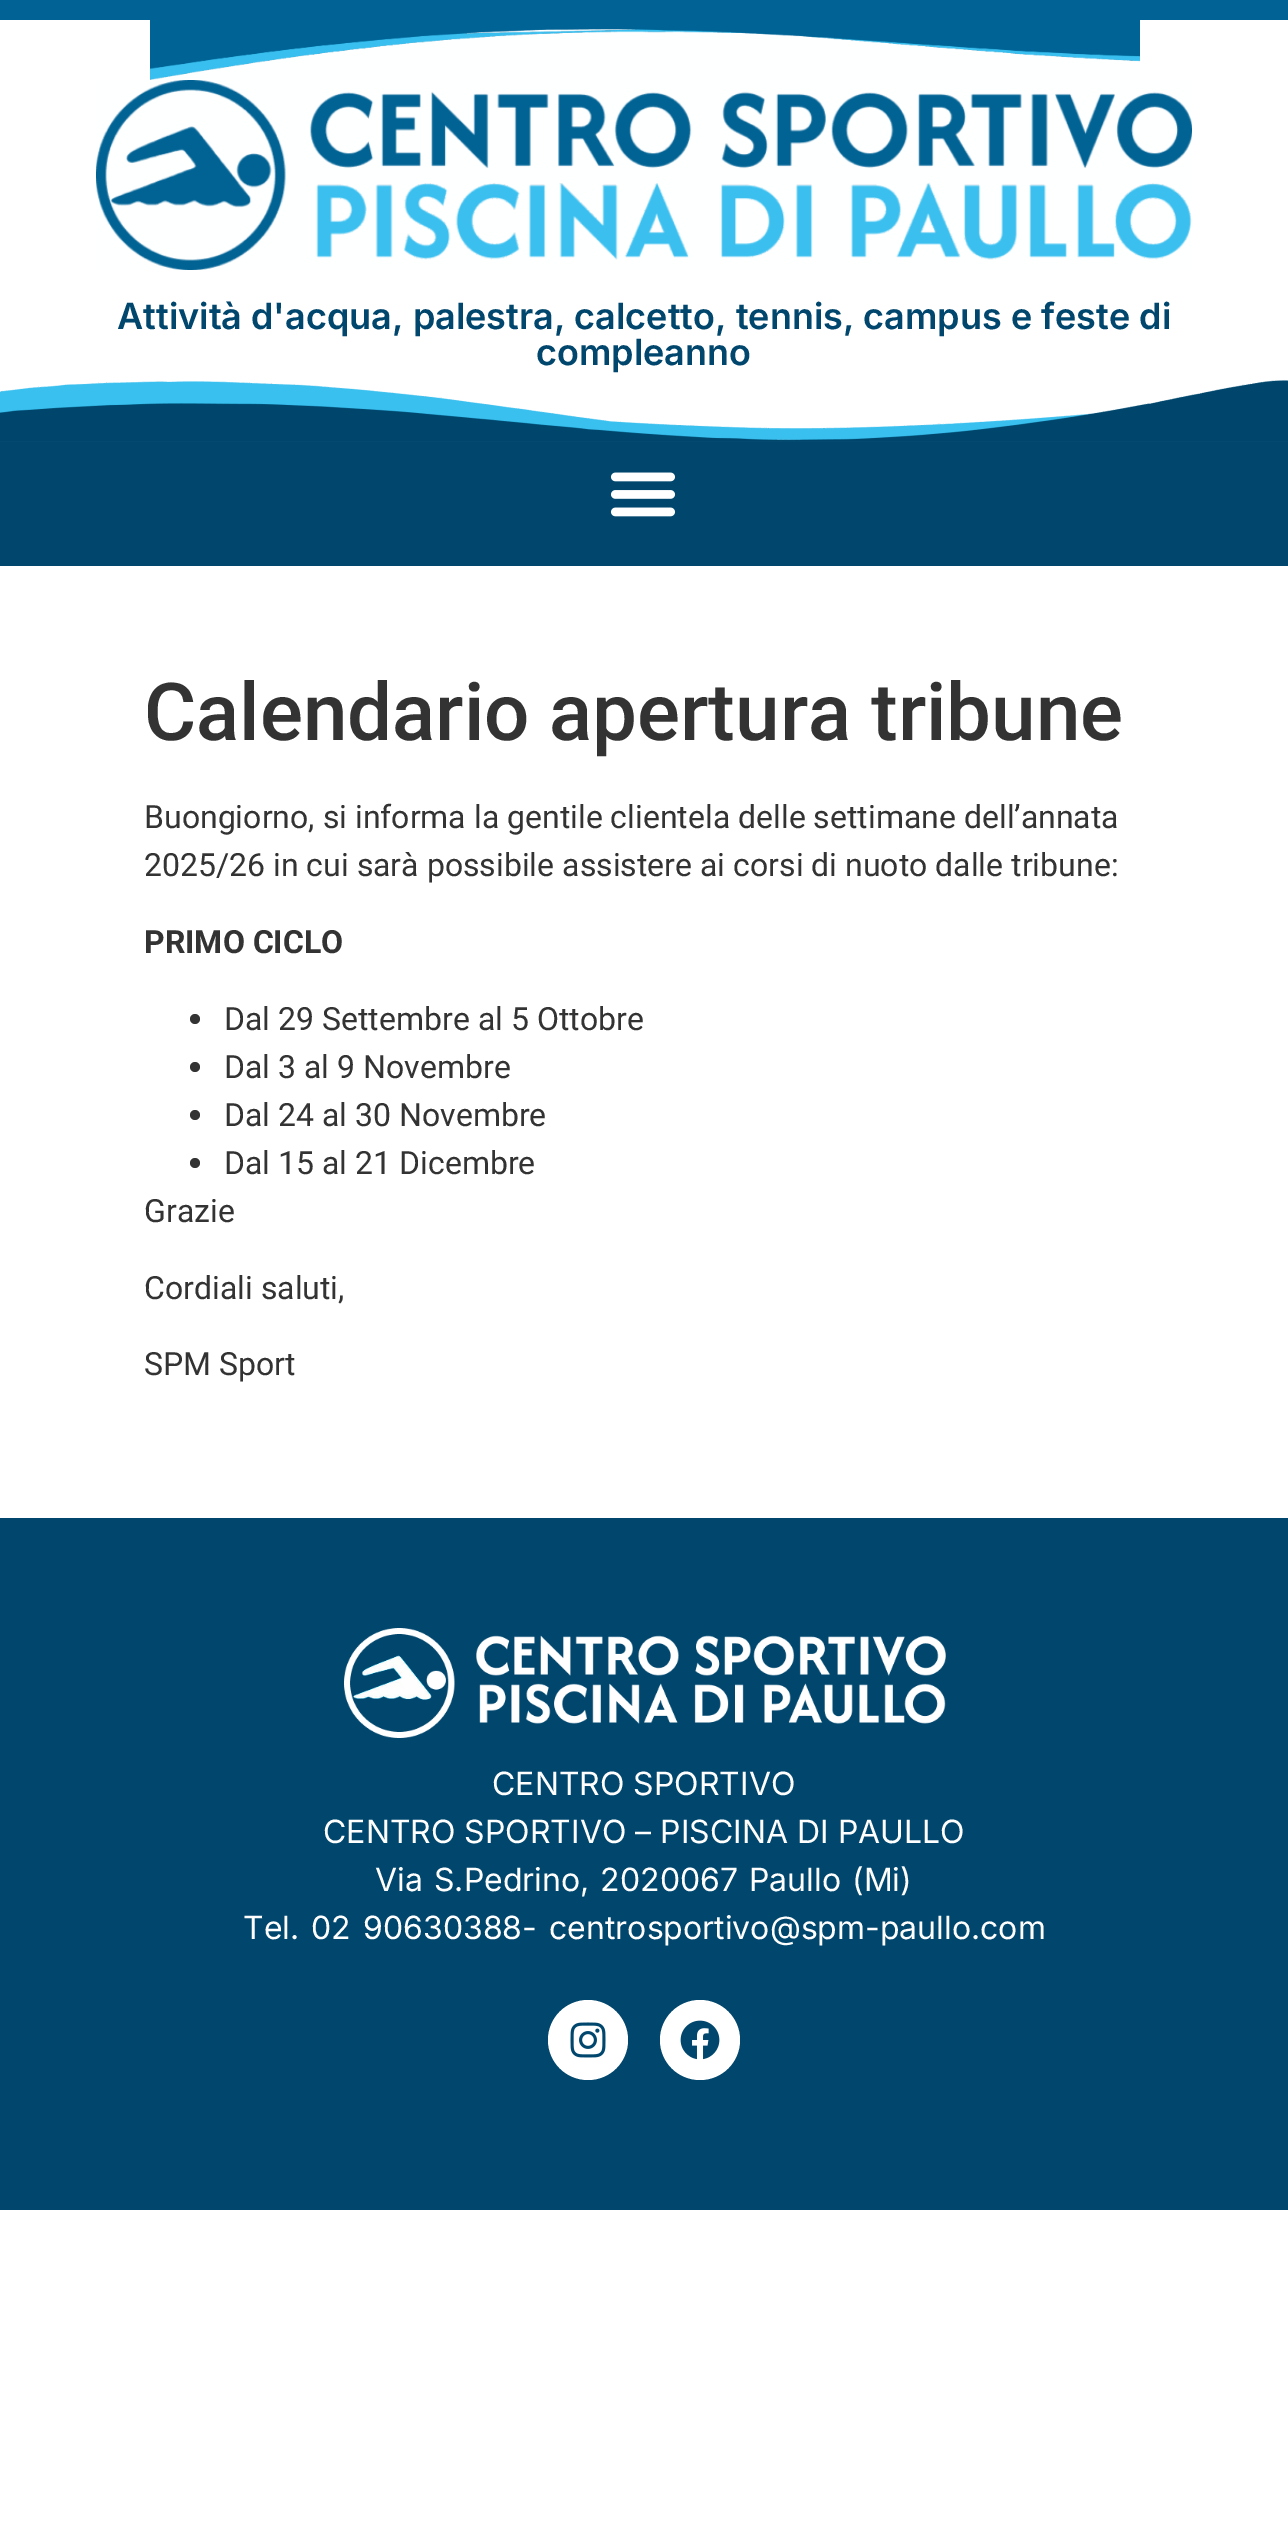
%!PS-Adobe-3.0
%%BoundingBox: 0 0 1288 2527
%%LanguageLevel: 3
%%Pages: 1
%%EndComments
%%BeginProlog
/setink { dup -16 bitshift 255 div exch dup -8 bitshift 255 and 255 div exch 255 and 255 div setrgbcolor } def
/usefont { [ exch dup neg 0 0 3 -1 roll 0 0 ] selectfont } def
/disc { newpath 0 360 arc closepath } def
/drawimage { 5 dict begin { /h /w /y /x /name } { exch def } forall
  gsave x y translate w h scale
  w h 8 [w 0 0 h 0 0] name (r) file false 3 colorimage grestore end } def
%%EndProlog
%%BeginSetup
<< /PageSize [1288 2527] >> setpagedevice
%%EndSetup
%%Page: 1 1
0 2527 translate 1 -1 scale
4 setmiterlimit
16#FFFFFF setink
0 0 1288 2527 rectfill
16#016395 setink
0 0 1288 20 rectfill
(img1.raw) 150 20 990 60 drawimage
(img2.raw) 96 80 1096 190 drawimage
/Inter-SemiBold 36 usefont
16#00466D setink
117 329 moveto (Attività d'acqua, palestra, calcetto, tennis, campus e feste di) show
536 365 moveto (compleanno) show
(img3.raw) 0 380 1288 62 drawimage
0 442 1288 124 rectfill
(img4.raw) 610 472 66 45 drawimage
/Roboto-Medium 80 usefont
16#333333 setink
144 740 moveto (Calendario apertura tribune) show
/Roboto-Regular 32 usefont
144 828 moveto (Buongiorno, si informa la gentile clientela delle settimane dell’annata) show
144 876 moveto (2025/26 in cui sarà possibile assistere ai corsi di nuoto dalle tribune:) show
/Roboto-Bold 32 usefont
144 953 moveto (PRIMO CICLO) show
195 1019 5 disc fill
/Roboto-Regular 32 usefont
224 1030 moveto (Dal 29 Settembre al 5 Ottobre) show
195 1067 5 disc fill
224 1078 moveto (Dal 3 al 9 Novembre) show
195 1115 5 disc fill
224 1126 moveto (Dal 24 al 30 Novembre) show
195 1163 5 disc fill
[
    [(Dal 15 al 21 Dicembre) 224 1174]
    [(Grazie) 144 1222]
    [(Cordiali saluti,) 144 1299]
    [(SPM Sport) 144 1375]
] { aload pop moveto show } forall
16#00466D setink
0 1518 1288 692 rectfill
(img5.raw) 344 1628 602 110 drawimage
/Inter-Regular 32 usefont
16#FFFFFF setink
492 1795 moveto (CENTRO SPORTIVO) show
323 1843 moveto (CENTRO SPORTIVO – PISCINA DI PAULLO) show
375 1891 moveto 2 0 32 (Via S.Pedrino, 2020067 Paullo \(Mi\)) widthshow
243 1939 moveto 3 0 32 (Tel. 02 90630388-) widthshow
549 1939 moveto (centrosportivo@spm-paullo.com) show
588 2040 40 disc fill
(img6.raw) 570 2022 36 36 drawimage
700 2040 40 disc fill
(img7.raw) 680 2020 40 40 drawimage
showpage
%%EOF
